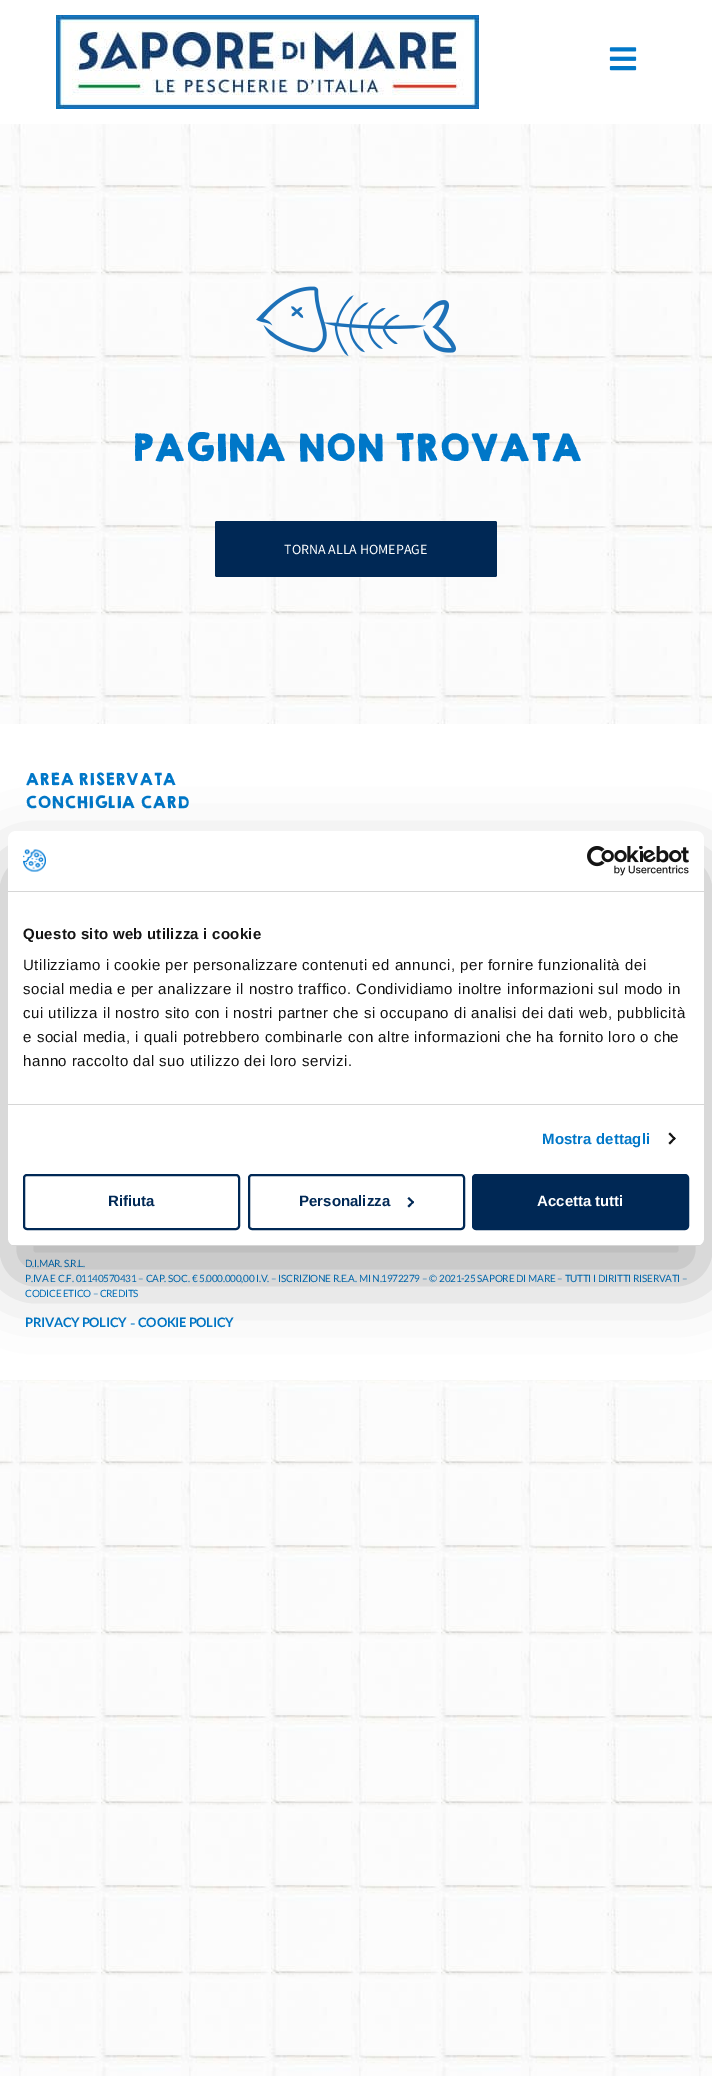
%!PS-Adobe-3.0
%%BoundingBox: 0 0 712 2076
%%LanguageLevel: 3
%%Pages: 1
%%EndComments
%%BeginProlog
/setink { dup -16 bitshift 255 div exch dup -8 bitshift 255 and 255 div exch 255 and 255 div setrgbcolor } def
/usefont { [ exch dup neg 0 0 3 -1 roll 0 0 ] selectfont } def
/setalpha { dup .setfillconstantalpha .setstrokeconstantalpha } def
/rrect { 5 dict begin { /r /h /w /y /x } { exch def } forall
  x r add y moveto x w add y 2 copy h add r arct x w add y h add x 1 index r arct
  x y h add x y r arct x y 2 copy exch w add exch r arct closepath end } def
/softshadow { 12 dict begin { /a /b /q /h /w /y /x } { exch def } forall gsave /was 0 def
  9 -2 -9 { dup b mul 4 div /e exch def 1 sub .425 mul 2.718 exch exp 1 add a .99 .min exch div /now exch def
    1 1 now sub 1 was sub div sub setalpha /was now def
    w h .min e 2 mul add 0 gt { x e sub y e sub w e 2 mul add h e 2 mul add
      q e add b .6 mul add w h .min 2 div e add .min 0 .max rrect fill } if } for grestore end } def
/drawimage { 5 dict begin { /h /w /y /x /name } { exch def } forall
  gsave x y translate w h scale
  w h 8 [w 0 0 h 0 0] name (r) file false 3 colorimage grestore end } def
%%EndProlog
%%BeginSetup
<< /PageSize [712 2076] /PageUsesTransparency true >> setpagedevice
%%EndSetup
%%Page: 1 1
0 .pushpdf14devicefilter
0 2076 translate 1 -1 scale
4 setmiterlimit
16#FFFFFF setink
0 0 712 2076 rectfill
(img1.raw) 0 124 712 1952 drawimage
(img2.raw) 56 15 423 94 drawimage
(img3.raw) 609 47 28 24 drawimage
(img4.raw) 256 286 200 71 drawimage
/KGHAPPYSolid-Bold 33 usefont
16#0077C8 setink
131 461 moveto (PAGINA NON TROVATA) show
16#002855 setink
215 521 282 56 2 rrect fill
/SourceSansPro-Regular 14 usefont
16#FFFFFF setink
284 554 moveto (TORNA ALLA HOMEPAGE) show
0 724 712 656 rectfill
/KGHAPPYSolid-Regular 15 usefont
16#0077C8 setink
25 785 moveto (AREA RISERVATA) show
25 808 moveto (CONCHIGLIA CARD) show
/Lato-Regular 10 usefont
25 1267 moveto -0.3 0 (D.I.MAR. S.R.L.) ashow
25 1282 moveto 0.45 0 32 -0.3 0 (P.IVA E C.F. 01140570431 – CAP. SOC. € 5.000.000,00 I.V. – ISCRIZIONE R.E.A. MI N.1972279 – © 2021-25 SAPORE DI MARE – TUTTI I DIRITTI RISERVATI –) awidthshow
25 1297 moveto -0.3 0 (CODICE ETICO – CREDITS) ashow
/Lato-Bold 13 usefont
25 1327 moveto -0.3 0 (PRIVACY POLICY) ashow
/Lato-Bold 10 usefont
130 1327 moveto -0.3 0 (–) ashow
/Lato-Bold 13 usefont
138 1327 moveto -0.3 0 (COOKIE POLICY) ashow
16#000000 setink
8 863 696 415 8 34 0.3 softshadow
16#FFFFFF setink
8 831 696 415 8 rrect fill
16#D6D6D6 setink
8 891 696 1 rectfill
(img5.raw) 23 849 23 23 drawimage
(img6.raw) 587 846 102 30 drawimage
8 1104 696 1 rectfill
/LiberationSans-Bold 15 usefont
16#141414 setink
23 939 moveto 0.25 0 (Questo sito web utilizza i cookie) ashow
/LiberationSans-Regular 15 usefont
23 970 moveto 0.5 0 (Utilizziamo i cookie per personalizzare contenuti ed annunci, per fornire funzionalità dei) ashow
23 994 moveto 0.5 0 (social media e per analizzare il nostro traffico. Condividiamo inoltre informazioni sul modo in) ashow
23 1018 moveto 0.5 0 (cui utilizza il nostro sito con i nostri partner che si occupano di analisi dei dati web, pubblicità) ashow
23 1042 moveto 0.5 0 (e social media, i quali potrebbero combinarle con altre informazioni che ha fornito loro o che) ashow
23 1066 moveto 0.5 0 (hanno raccolto dal suo utilizzo dei loro servizi.) ashow
/LiberationSans-Bold 15 usefont
16#0077C8 setink
542 1144 moveto 0.1 0 (Mostra dettagli) ashow
16#141414 setink
670 1132.5 moveto 675.5 1138.5 lineto 674.5 1140 lineto 668.5 1134 lineto closepath fill
674.5 1137 moveto 675.5 1138.5 lineto 670 1144.5 lineto 668.5 1143 lineto closepath fill
gsave
8 831 696 415 8 rrect clip newpath
16#D6D6D6 setink
8 1245 696 1 rectfill
grestore
16#002855 setink
2 setlinewidth
24 1175 215 54 3 rrect stroke
108 1206 moveto (Rifiuta) show
249 1175 215 54 3 rrect stroke
299 1206 moveto (Personalizza) show
409 1197 moveto 414 1202 lineto 413 1203.5 lineto 407.5 1198.5 lineto closepath fill
413 1201 moveto 414 1202 lineto 409 1207.5 lineto 407.5 1206 lineto closepath fill
473 1175 215 54 3 rrect gsave fill grestore
stroke
16#FFFFFF setink
537 1206 moveto (Accetta tutti) show
.poppdf14devicefilter showpage
%%EOF
